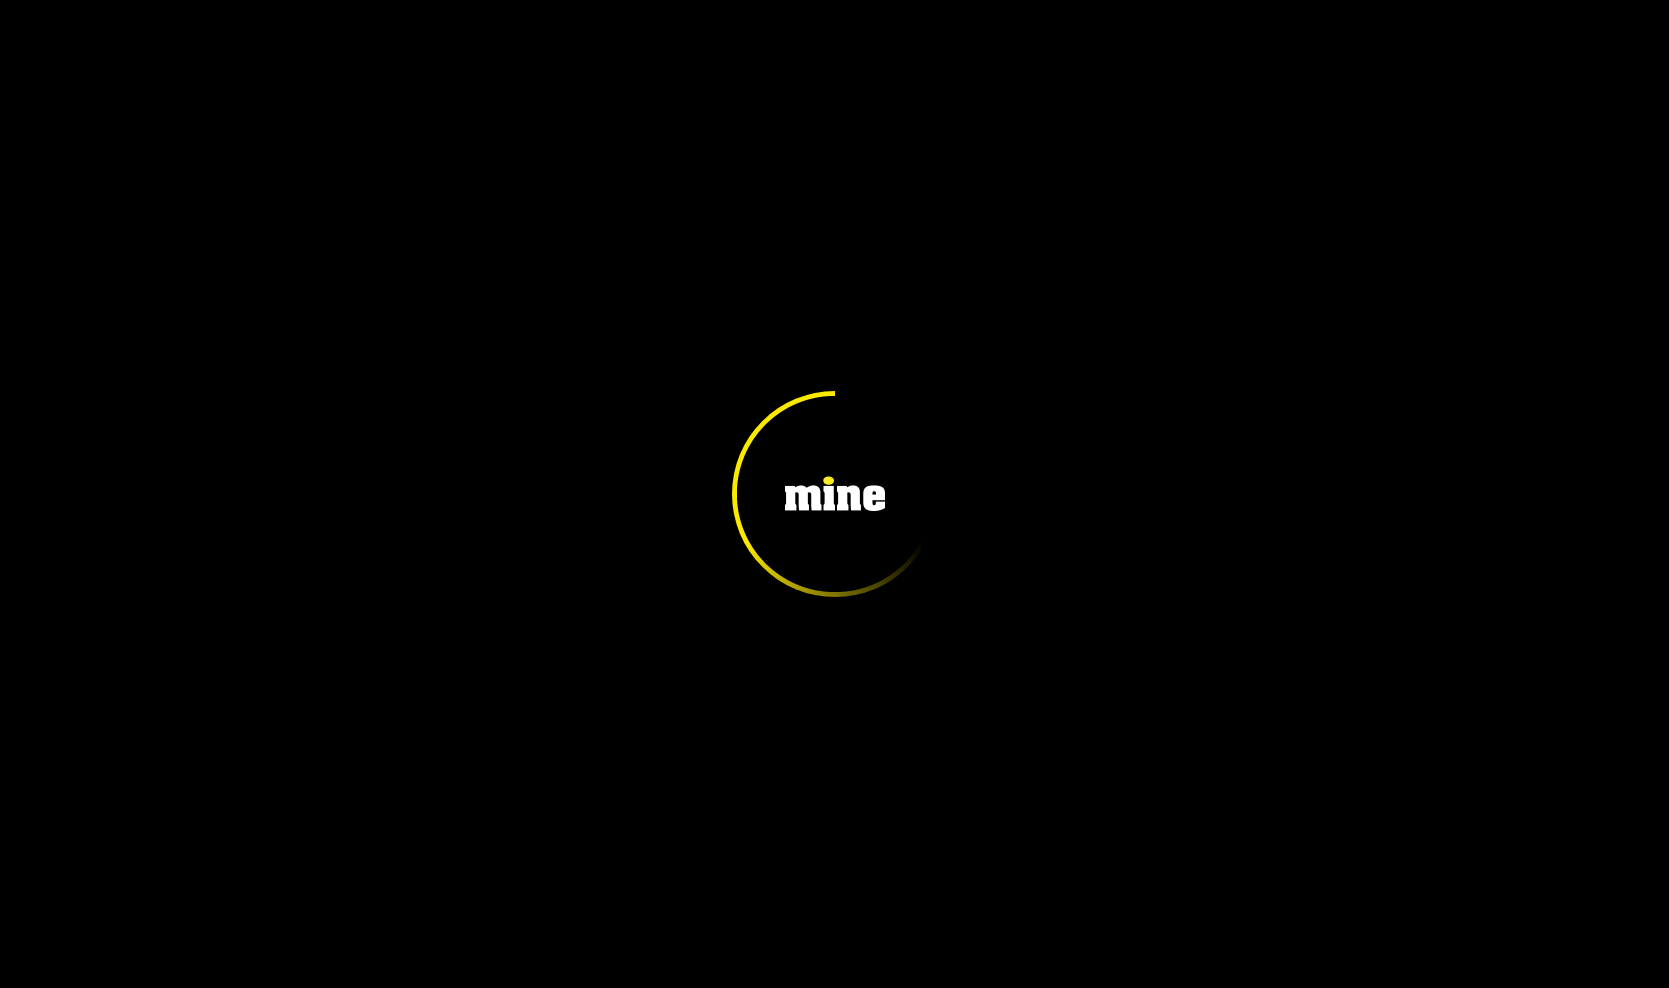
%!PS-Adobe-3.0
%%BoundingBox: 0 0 1669 988
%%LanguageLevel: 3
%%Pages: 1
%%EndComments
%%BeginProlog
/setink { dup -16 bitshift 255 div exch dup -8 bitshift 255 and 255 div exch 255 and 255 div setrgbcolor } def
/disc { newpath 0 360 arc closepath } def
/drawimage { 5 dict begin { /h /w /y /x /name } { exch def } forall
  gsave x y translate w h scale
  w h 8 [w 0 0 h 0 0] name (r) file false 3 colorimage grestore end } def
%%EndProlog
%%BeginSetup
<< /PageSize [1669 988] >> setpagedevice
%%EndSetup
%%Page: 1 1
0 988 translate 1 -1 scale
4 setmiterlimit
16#000000 setink
0 0 1669 988 rectfill
(img1.raw) 732 391 190 206 drawimage
835 494 98 disc fill
(img2.raw) 785 476 100 35 drawimage
showpage
%%EOF
